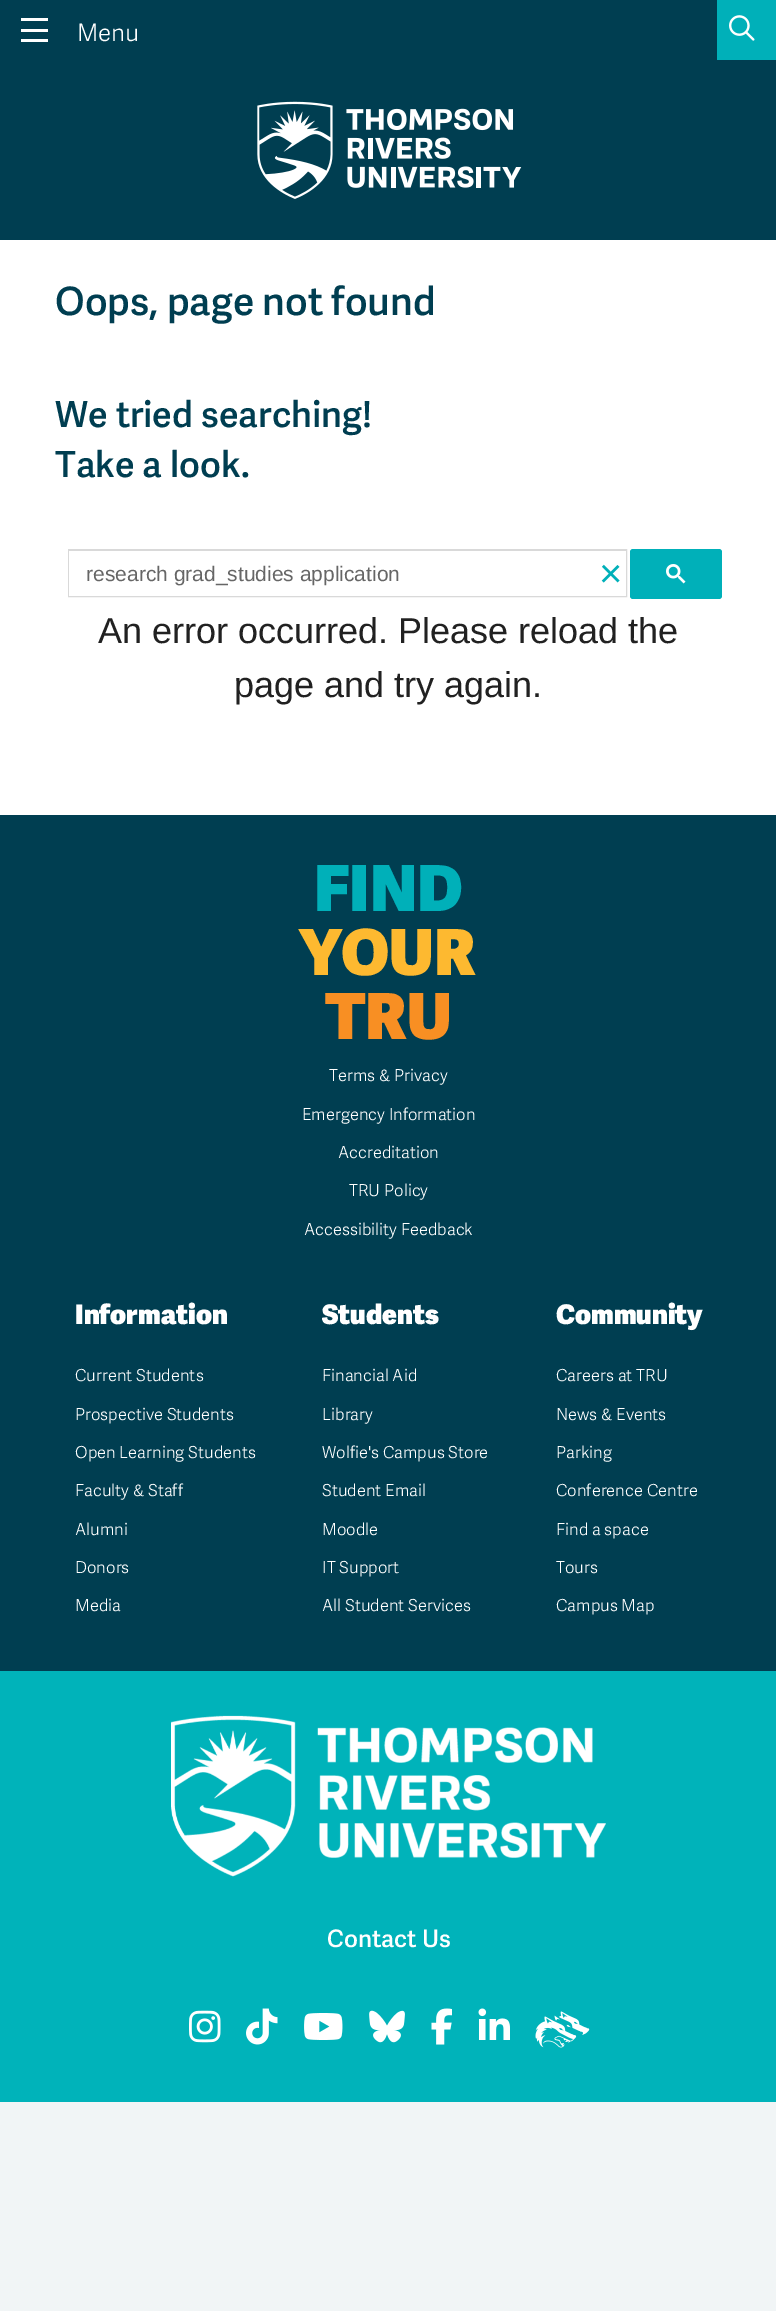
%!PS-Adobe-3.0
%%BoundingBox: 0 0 776 2311
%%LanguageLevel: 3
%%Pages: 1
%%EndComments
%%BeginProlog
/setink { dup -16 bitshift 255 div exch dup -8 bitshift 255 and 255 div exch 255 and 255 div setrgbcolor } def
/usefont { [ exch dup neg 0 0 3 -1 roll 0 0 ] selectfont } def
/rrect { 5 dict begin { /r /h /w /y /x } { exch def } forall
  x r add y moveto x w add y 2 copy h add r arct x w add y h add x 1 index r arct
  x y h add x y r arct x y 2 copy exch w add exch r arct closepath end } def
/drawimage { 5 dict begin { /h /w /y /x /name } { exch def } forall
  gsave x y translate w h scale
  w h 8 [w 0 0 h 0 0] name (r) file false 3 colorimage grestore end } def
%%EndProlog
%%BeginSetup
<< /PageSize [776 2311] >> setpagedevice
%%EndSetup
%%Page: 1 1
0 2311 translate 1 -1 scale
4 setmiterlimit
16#F1F5F6 setink
0 0 776 2311 rectfill
[
    [0 0 717 60 16#003E51]
    [21 39 27 3 16#FFFFFF]
    [21 29 27 3 16#FFFFFF]
    [21 18 27 3 16#FFFFFF]
] { aload pop setink rectfill } forall
/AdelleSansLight-Light 24 usefont
77 41 moveto (Menu) show
16#00B0B9 setink
717 0 59 60 rectfill
(img1.raw) 729 15 26 26 drawimage
16#003E51 setink
0 60 776 180 rectfill
(img2.raw) 257 101 265 98 drawimage
16#FFFFFF setink
0 240 776 575 rectfill
/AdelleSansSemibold-SemiBold 39 usefont
16#003E51 setink
55 315 moveto (Oops, page not found) show
/AdelleSansSemibold-SemiBold 36 usefont
55 427 moveto (We tried searching!) show
55 477 moveto (Take a look.) show
16#D9D9D9 setink
2 setlinewidth
69 550 557 46 rectstroke
16#FFFFFF setink
69 551 557 45 rectfill
/LiberationSans-Regular 21 usefont
16#666666 setink
86 581 moveto (research grad_studies application) show
/LiberationSans-Regular 40 usefont
16#00B0B9 setink
599 587 moveto (×) show
630 549 92 50 3 rrect fill
(img3.raw) 666 564 20 20 drawimage
/LiberationSans-Regular 36 usefont
16#212121 setink
98 643 moveto (An error occurred. Please reload the) show
234 697 moveto (page and try again.) show
16#003E51 setink
0 815 776 856 rectfill
/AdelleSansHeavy-Black 63.5 usefont
16#00B0B9 setink
314 911 moveto (FIND) show
16#FDB930 setink
300 975 moveto (YOUR) show
16#F88F23 setink
325 1039 moveto (TRU) show
/AdelleSansLight-Light 16.5 usefont
16#FFFFFF setink
[
    [(Terms & Privacy) 329 1081]
    [(Emergency Information) 302 1120]
    [(Accreditation) 338 1158]
    [(TRU Policy) 349 1196]
    [(Accessibility Feedback) 304 1235]
] { aload pop moveto show } forall
/AdelleSansHeavy-Black 27 usefont
75 1324 moveto (Information) show
/AdelleSansLight-Light 16.5 usefont
[
    [(Current Students) 75 1381]
    [(Prospective Students) 75 1420]
    [(Open Learning Students) 75 1458]
    [(Faculty & Staff) 75 1496]
    [(Alumni) 75 1535]
    [(Donors) 75 1573]
    [(Media) 75 1611]
] { aload pop moveto show } forall
/AdelleSansHeavy-Black 27 usefont
322 1324 moveto (Students) show
/AdelleSansLight-Light 16.5 usefont
[
    [(Financial Aid) 322 1381]
    [(Library) 322 1420]
    [(Wolfie's Campus Store) 322 1458]
    [(Student Email) 322 1496]
    [(Moodle) 322 1535]
    [(IT Support) 322 1573]
    [(All Student Services) 322 1611]
] { aload pop moveto show } forall
/AdelleSansHeavy-Black 27 usefont
556 1324 moveto (Community) show
/AdelleSansLight-Light 16.5 usefont
[
    [(Careers at TRU) 556 1381]
    [(News & Events) 556 1420]
    [(Parking) 556 1458]
    [(Conference Centre) 556 1496]
    [(Find a space) 556 1535]
    [(Tours) 556 1573]
    [(Campus Map) 556 1611]
] { aload pop moveto show } forall
16#00B3BA setink
0 1671 776 431 rectfill
(img4.raw) 171 1715 435 162 drawimage
/AdelleSansSemibold-SemiBold 24 usefont
16#FFFFFF setink
327 1947 moveto (Contact Us) show
(img5.raw) 189 2010 32 33 drawimage
(img6.raw) 246 2008 32 37 drawimage
(img7.raw) 304 2013 39 27 drawimage
(img8.raw) 369 2010 36 33 drawimage
(img9.raw) 431 2008 21 37 drawimage
(img10.raw) 478 2008 32 32 drawimage
(img11.raw) 535 2011 55 37 drawimage
showpage
%%EOF
